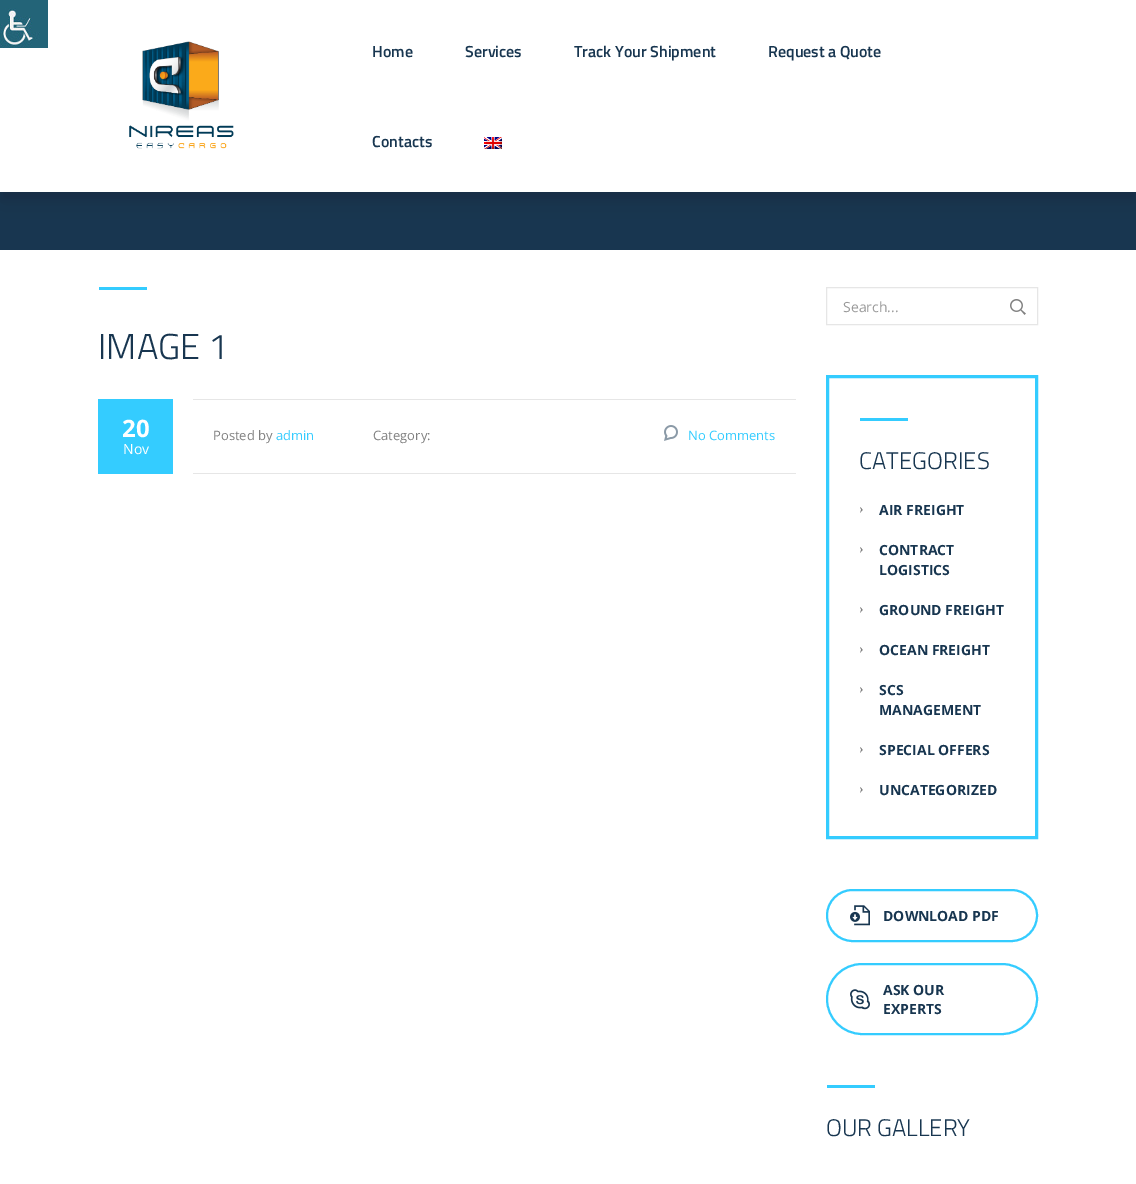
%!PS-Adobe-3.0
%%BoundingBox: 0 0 1136 1184
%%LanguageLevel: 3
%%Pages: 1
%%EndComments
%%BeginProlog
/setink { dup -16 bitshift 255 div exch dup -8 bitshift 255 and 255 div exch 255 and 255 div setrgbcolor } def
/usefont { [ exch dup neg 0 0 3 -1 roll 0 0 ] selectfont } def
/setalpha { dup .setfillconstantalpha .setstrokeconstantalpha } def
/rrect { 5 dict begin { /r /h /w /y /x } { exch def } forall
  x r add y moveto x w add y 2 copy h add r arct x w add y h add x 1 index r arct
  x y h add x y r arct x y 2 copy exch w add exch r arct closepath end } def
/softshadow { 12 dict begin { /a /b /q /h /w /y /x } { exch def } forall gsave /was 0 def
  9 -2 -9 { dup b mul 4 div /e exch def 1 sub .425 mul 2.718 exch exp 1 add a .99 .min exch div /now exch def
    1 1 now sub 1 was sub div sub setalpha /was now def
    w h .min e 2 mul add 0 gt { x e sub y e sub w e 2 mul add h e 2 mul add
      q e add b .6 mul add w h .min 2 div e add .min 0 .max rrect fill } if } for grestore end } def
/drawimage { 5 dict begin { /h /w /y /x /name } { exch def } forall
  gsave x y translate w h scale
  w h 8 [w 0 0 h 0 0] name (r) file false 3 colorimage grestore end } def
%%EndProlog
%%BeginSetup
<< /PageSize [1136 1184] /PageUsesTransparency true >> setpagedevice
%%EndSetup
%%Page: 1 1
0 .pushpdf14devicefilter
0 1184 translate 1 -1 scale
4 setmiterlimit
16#FFFFFF setink
0 0 1136 1184 rectfill
16#183650 setink
0 192 1136 58 rectfill
16#000000 setink
0 8 1136 192 0 4 0.07 softshadow
0 10 1136 192 0 14 0.1 softshadow
16#FFFFFF setink
0 0 1136 192 rectfill
(img1.raw) 0 0 48 48 drawimage
(img2.raw) 129 41 105 108 drawimage
/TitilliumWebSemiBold-SemiBold 16 usefont
16#183650 setink
[
    [(Home) 372 57]
    [(Services) 465 57]
    [(Track Your Shipment) 574 57]
    [(Request a Quote) 768 57]
    [(Contacts) 372 147]
] { aload pop moveto show } forall
(img3.raw) 484 137 18 12 drawimage
16#34CCFF setink
99 287 48 3 rectfill
/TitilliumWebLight-Light 36 usefont
16#183650 setink
98 359 moveto (IMAGE 1) show
16#34CCFF setink
98 399 75 75 rectfill
/OpenSans-Bold 24 usefont
16#FFFFFF setink
122 437 moveto (20) show
/OpenSans-Regular 14 usefont
123 454 moveto (Nov) show
16#E6E6E6 setink
193 399 603 1 rectfill
193 473 603 1 rectfill
/OpenSans-Regular 13 usefont
16#808080 setink
213 440 moveto (Posted by) show
16#34CCFF setink
276 440 moveto (admin) show
16#808080 setink
373 440 moveto (Category:) show
(img4.raw) 664 425 14 16 drawimage
16#34CCFF setink
688 440 moveto (No Comments) show
16#E6E6E6 setink
826.5 287.5 211 37 rectstroke
/OpenSans-Regular 14 usefont
16#999999 setink
843 312 moveto (Search...) show
(img5.raw) 1010 299 16 16 drawimage
16#34CCFF setink
3 setlinewidth
827.5 376.5 209 461 rectstroke
860 418 48 3 rectfill
/TitilliumWebLight-Light 24 usefont
16#183650 setink
859 469 moveto (CATEGORIES) show
/LiberationSerif-Bold 14 usefont
16#808080 setink
859 513 moveto (›) show
/OpenSans-Bold 14 usefont
16#183650 setink
879 515 moveto (AIR FREIGHT) show
/LiberationSerif-Bold 14 usefont
16#808080 setink
859 553 moveto (›) show
/OpenSans-Bold 14 usefont
16#183650 setink
879 555 moveto (CONTRACT) show
879 575 moveto (LOGISTICS) show
/LiberationSerif-Bold 14 usefont
16#808080 setink
859 613 moveto (›) show
/OpenSans-Bold 14 usefont
16#183650 setink
879 615 moveto (GROUND FREIGHT) show
/LiberationSerif-Bold 14 usefont
16#808080 setink
859 653 moveto (›) show
/OpenSans-Bold 14 usefont
16#183650 setink
879 655 moveto (OCEAN FREIGHT) show
/LiberationSerif-Bold 14 usefont
16#808080 setink
859 693 moveto (›) show
/OpenSans-Bold 14 usefont
16#183650 setink
879 695 moveto (SCS) show
879 715 moveto (MANAGEMENT) show
/LiberationSerif-Bold 14 usefont
16#808080 setink
859 753 moveto (›) show
/OpenSans-Bold 14 usefont
16#183650 setink
879 755 moveto (SPECIAL OFFERS) show
/LiberationSerif-Bold 14 usefont
16#808080 setink
859 793 moveto (›) show
/OpenSans-Bold 14 usefont
16#183650 setink
879 795 moveto (UNCATEGORIZED) show
16#34CCFF setink
2 setlinewidth
827 890 210 51 25.5 rrect stroke
(img6.raw) 850 905 20 21 drawimage
16#183650 setink
883 921 moveto (DOWNLOAD PDF) show
16#34CCFF setink
827 964 210 70 35 rrect stroke
(img7.raw) 850 989 20 21 drawimage
16#183650 setink
883 995 moveto (ASK OUR) show
883 1014 moveto (EXPERTS) show
16#34CCFF setink
827 1085 48 3 rectfill
/TitilliumWebLight-Light 24 usefont
16#183650 setink
826 1136 moveto (OUR GALLERY) show
.poppdf14devicefilter showpage
%%EOF
